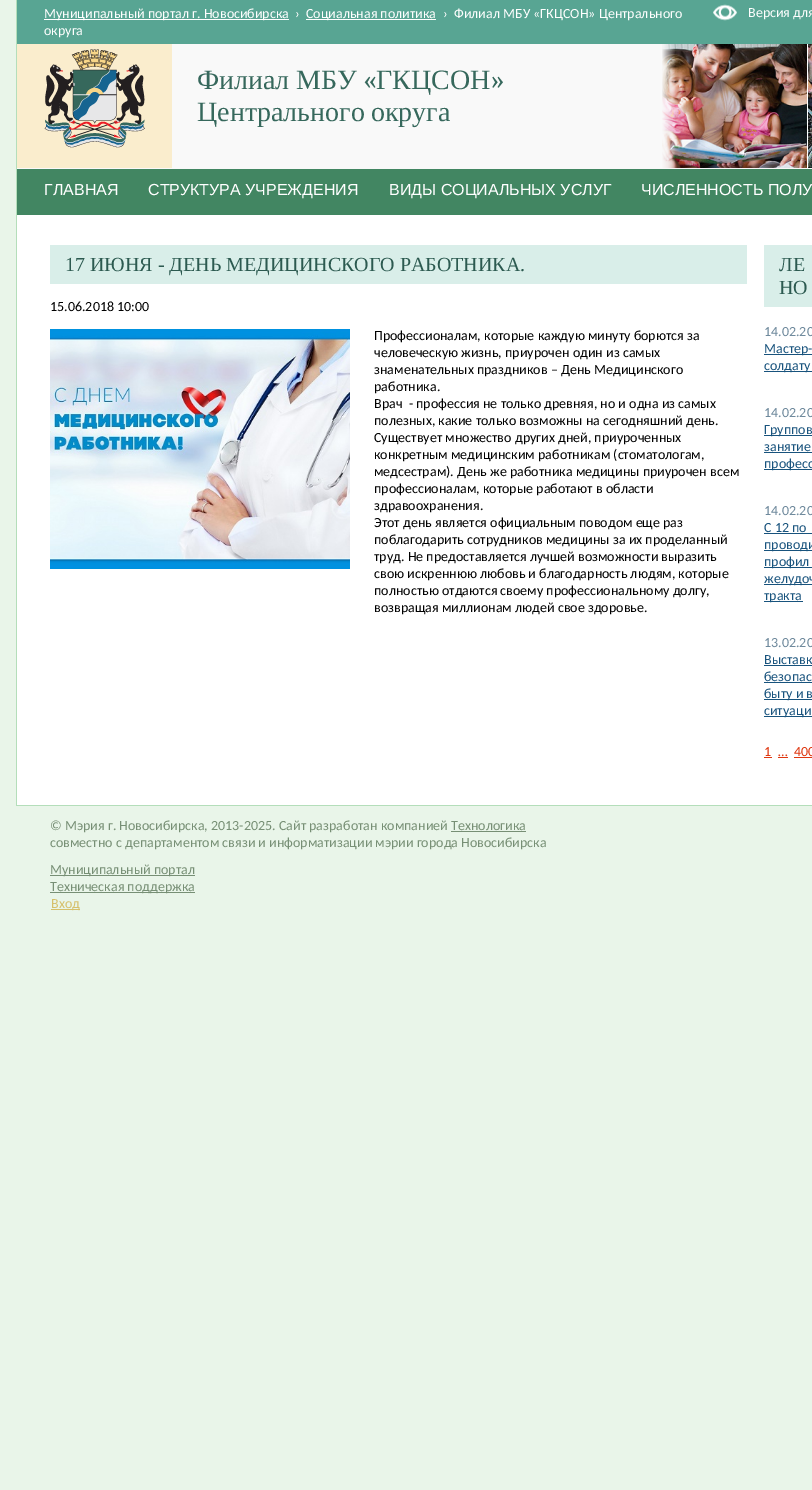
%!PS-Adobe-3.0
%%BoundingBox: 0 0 812 1490
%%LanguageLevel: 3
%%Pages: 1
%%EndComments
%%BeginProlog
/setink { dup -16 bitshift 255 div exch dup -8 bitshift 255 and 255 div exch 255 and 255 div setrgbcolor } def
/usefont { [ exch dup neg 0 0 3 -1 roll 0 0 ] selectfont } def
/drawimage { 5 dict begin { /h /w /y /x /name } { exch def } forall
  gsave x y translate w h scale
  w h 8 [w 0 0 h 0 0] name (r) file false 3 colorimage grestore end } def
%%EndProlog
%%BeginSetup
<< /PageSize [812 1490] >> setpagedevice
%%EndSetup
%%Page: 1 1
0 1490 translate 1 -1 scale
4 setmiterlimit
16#E9F5E9 setink
0 0 812 1490 rectfill
[
    [17 215 795 590 16#FFFFFF]
    [16 805 796 1 16#B4DEBA]
    [16 0 1 806 16#B4DEBA]
    [17 44 795 125 16#F9F9F9]
    [17 0 795 44 16#58A593]
    [44 19 245 1 16#FFFFFF]
] { aload pop setink rectfill } forall
/Carlito-Regular 14 usefont
44 18 moveto (Муниципальный портал г. Новосибирска) show
295 18 moveto (›) show
306 19 130 1 rectfill
[
    [(Социальная политика) 306 18]
    [(›) 443 18]
    [(Филиал МБУ «ГКЦСОН» Центрального) 454 18]
    [(округа) 44 35]
] { aload pop moveto show } forall
16#FAEDCD setink
17 44 155 124 rectfill
(img1.raw) 44 49 101 99 drawimage
(img2.raw) 662 44 150 124 drawimage
(img3.raw) 496 44 179 124 drawimage
/LiberationSerif-Regular 28 usefont
16#36685C setink
197 89 moveto (Филиал) show
296 89 moveto (МБУ) show
/Caladea-Regular 28 usefont
363 89 moveto («) show
/LiberationSerif-Regular 28 usefont
376 89 moveto (ГКЦСОН) show
/Caladea-Regular 28 usefont
491 89 moveto (») show
/LiberationSerif-Regular 28 usefont
197 121 moveto -1 0 32 (Центрального округа) widthshow
(img4.raw) 713 4 24 17 drawimage
/Carlito-Regular 14 usefont
16#FFFFFF setink
748 17 moveto (Версия для) show
16#428662 setink
17 169 795 46 rectfill
/LiberationSans-Regular 16 usefont
16#FFFFFF setink
[
    [(ГЛАВНАЯ) 44 195]
    [(СТРУКТУРА УЧРЕЖДЕНИЯ) 148 195]
    [(ВИДЫ СОЦИАЛЬНЫХ УСЛУГ) 389 195]
    [(ЧИСЛЕННОСТЬ ПОЛУ) 641 195]
] { aload pop moveto show } forall
16#D9EEE9 setink
50 245 697 39 rectfill
/LiberationSerif-Regular 20 usefont
16#2C5A50 setink
65 271 moveto (17 ИЮНЯ - ДЕНЬ МЕДИЦИНСКОГО РАБОТНИКА.) show
/Carlito-Regular 14 usefont
16#000000 setink
50 311 moveto (15.06.2018 10:00) show
(img5.raw) 50 329 300 240 drawimage
[
    [(Профессионалам, которые каждую минуту борются за) 374 340]
    [(человеческую жизнь, приурочен один из самых) 374 357]
    [(знаменательных праздников – День Медицинского) 374 374]
    [(работника.) 374 391]
    [(Врач  - профессия не только древняя, но и одна из самых) 374 408]
    [(полезных, какие только возможны на сегодняшний день.) 374 425]
    [(Существует множество других дней, приуроченных) 374 442]
    [(конкретным медицинским работникам \(стоматологам,) 374 459]
    [(медсестрам\). День же работника медицины приурочен всем) 374 476]
    [(профессионалам, которые работают в области) 374 493]
    [(здравоохранения.) 374 510]
    [(Этот день является официальным поводом еще раз) 374 527]
    [(поблагодарить сотрудников медицины за их проделанный) 374 544]
    [(труд. Не предоставляется лучшей возможности выразить) 374 561]
    [(свою искреннюю любовь и благодарность людям, которые) 374 578]
    [(полностью отдаются своему профессиональному долгу,) 374 595]
    [(возвращая миллионам людей свое здоровье.) 374 612]
] { aload pop moveto show } forall
16#D9EEE9 setink
764 245 48 62 rectfill
/LiberationSerif-Regular 20 usefont
16#2C5A50 setink
779 271 moveto (ЛЕ) show
779 294 moveto (НО) show
/Carlito-Regular 14 usefont
16#6E899C setink
764 336 moveto (14.02.20) show
16#18537D setink
764 354 48 1 rectfill
764 353 moveto (Мастер-) show
764 371 48 1 rectfill
764 370 moveto (солдату) show
16#6E899C setink
764 417 moveto (14.02.20) show
16#18537D setink
764 435 48 1 rectfill
764 434 moveto (Группов) show
764 451 moveto (занятие) show
764 452 48 1 rectfill
764 469 48 1 rectfill
764 468 moveto (професс) show
16#6E899C setink
764 515 moveto (14.02.20) show
16#18537D setink
764 532 moveto (С 12 по) show
764 533 48 1 rectfill
764 550 48 1 rectfill
764 549 moveto (проводи) show
764 567 48 1 rectfill
764 566 moveto (профил) show
764 584 48 1 rectfill
764 583 moveto (желудоч) show
764 601 39 1 rectfill
764 600 moveto (тракта) show
16#6E899C setink
764 647 moveto (13.02.20) show
16#18537D setink
764 664 moveto (Выставк) show
764 665 48 1 rectfill
764 681 moveto (безопас) show
764 682 48 1 rectfill
764 699 48 1 rectfill
764 698 moveto (быту и в) show
764 716 48 1 rectfill
764 715 moveto (ситуаци) show
16#DF3710 setink
764 756 moveto (1) show
764 757 8 1 rectfill
778 756 moveto (…) show
778 757 10 1 rectfill
794 756 moveto (400) show
794 757 18 1 rectfill
16#778F75 setink
50 830 moveto (© Мэрия г. Новосибирска, 2013-2025. Сайт разработан компанией Технологика) show
451 831 75 1 rectfill
50 847 moveto (совместно с департаментом связи и информатизации мэрии города Новосибирска) show
50 875 145 1 rectfill
50 874 moveto (Муниципальный портал) show
50 892 145 1 rectfill
50 891 moveto (Техническая поддержка) show
16#D6C06A setink
51 909 29 1 rectfill
51 908 moveto (Вход) show
showpage
%%EOF
